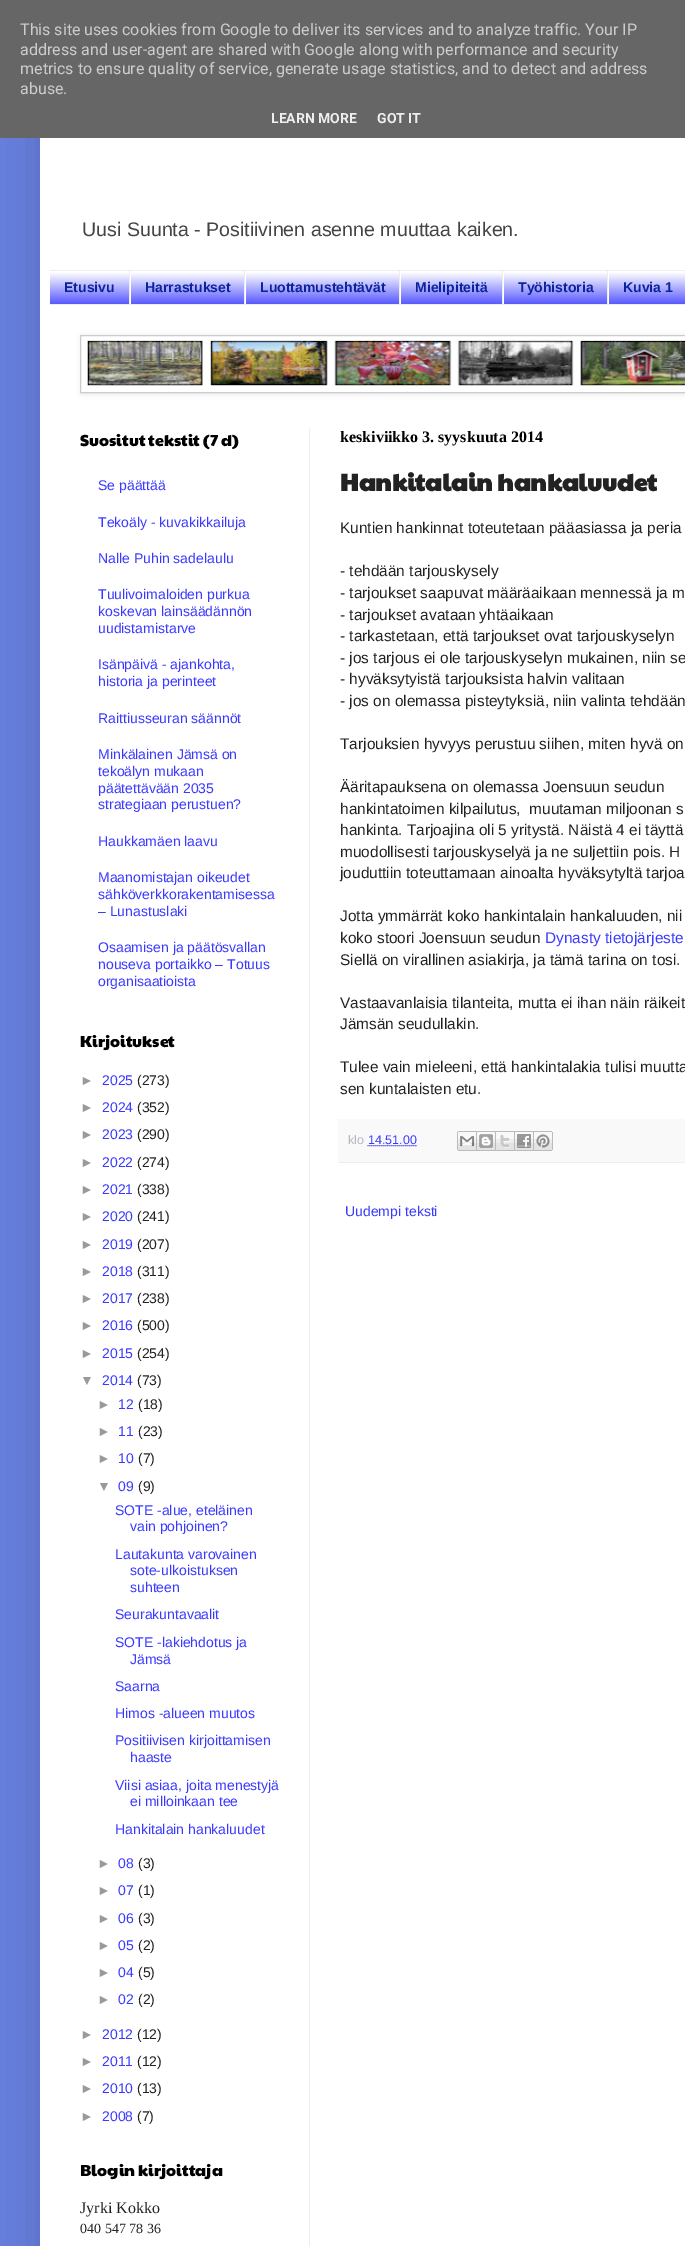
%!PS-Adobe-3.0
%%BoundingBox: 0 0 685 2246
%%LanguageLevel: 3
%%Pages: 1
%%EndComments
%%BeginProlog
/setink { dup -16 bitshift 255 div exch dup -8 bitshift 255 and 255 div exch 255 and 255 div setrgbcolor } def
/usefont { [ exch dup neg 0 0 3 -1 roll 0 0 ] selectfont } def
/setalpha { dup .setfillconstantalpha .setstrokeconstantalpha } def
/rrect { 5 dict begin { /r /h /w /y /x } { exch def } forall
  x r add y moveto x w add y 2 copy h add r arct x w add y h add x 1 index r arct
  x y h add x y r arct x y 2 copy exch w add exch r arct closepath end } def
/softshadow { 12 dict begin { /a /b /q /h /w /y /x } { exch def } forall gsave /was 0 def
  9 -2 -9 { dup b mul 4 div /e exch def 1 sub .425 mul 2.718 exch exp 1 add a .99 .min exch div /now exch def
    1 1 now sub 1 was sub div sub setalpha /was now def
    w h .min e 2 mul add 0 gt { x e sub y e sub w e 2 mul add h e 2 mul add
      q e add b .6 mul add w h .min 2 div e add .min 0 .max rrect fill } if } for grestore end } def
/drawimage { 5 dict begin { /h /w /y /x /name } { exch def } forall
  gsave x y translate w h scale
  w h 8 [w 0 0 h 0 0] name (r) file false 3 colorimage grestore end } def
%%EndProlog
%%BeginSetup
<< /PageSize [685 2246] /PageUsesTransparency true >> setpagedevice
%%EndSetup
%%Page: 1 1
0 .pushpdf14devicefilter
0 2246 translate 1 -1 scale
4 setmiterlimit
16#667EDD setink
0 0 685 2246 rectfill
16#000000 setink
40 30 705 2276 0 20 0.15 softshadow
16#666666 setink
0 0 685 138 rectfill
/Roboto-Regular 16 usefont
16#CCCCCC setink
[
    [(This site uses cookies from Google to deliver its services and to analyze traffic. Your IP) 20 35]
    [(address and user-agent are shared with Google along with performance and security) 20 55]
    [(metrics to ensure quality of service, generate usage statistics, and to detect and address) 20 74]
    [(abuse.) 20 94]
] { aload pop moveto show } forall
/Roboto-Bold 14 usefont
16#EEEEEE setink
271 123 moveto (LEARN MORE) show
377 123 moveto (GOT IT) show
16#FFFFFF setink
40 138 645 2108 rectfill
/LiberationSans-Regular 19.6 usefont
16#444444 setink
82 236 moveto (Uusi Suunta - Positiivinen asenne muuttaa kaiken.) show
16#3939FF setink
50 272 635 32 rectfill
(img1.raw) 50 271 635 33 drawimage
[
    [50 270 635 1 16#EEEEEE]
    [50 304 635 1 16#EEEEEE]
    [129 271 1 33 16#EEEEEE]
] { aload pop setink rectfill } forall
/LiberationSans-Bold 14 usefont
16#0C249B setink
64 292 moveto (Etusivu) show
16#EEEEEE setink
244 271 1 33 rectfill
16#FFFFFF setink
130 271 1 33 rectfill
16#0C249B setink
145 292 moveto (Harrastukset) show
16#EEEEEE setink
399 271 1 33 rectfill
16#FFFFFF setink
245 271 1 33 rectfill
16#0C249B setink
260 292 moveto (Luottamustehtävät) show
16#EEEEEE setink
502 271 1 33 rectfill
16#FFFFFF setink
400 271 1 33 rectfill
16#0C249B setink
415 292 moveto (Mielipiteitä) show
16#EEEEEE setink
607 271 1 33 rectfill
16#FFFFFF setink
503 271 1 33 rectfill
16#0C249B setink
518 292 moveto (Työhistoria) show
16#FFFFFF setink
608 271 1 33 rectfill
16#0C249B setink
623 292 moveto (Kuvia 1) show
gsave
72 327 moveto 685 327 lineto 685 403 lineto 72 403 lineto closepath 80 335 moveto 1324 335 lineto 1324 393 lineto 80 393 lineto closepath eoclip newpath
16#000000 setink
81 336 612 58 0 2.5 0.1 softshadow
grestore
16#CCCCCC setink
80.5 335.5 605 57 rectstroke
(img2.raw) 87 340 598 46 drawimage
16#EEEEEE setink
309 428 1 1818 rectfill
/PaytoneOne-Regular 16 usefont
16#000000 setink
80 446 moveto (Suositut tekstit \(7 d\)) show
/LiberationSans-Regular 14 usefont
16#3939FF setink
[
    [(Se päättää) 98 490]
    [(Tekoäly - kuvakikkailuja) 98 527]
    [(Nalle Puhin sadelaulu) 98 563]
    [(Tuulivoimaloiden purkua) 98 599]
    [(koskevan lainsäädännön) 98 616]
    [(uudistamistarve) 98 633]
    [(Isänpäivä - ajankohta,) 98 669]
    [(historia ja perinteet) 98 686]
    [(Raittiusseuran säännöt) 98 723]
    [(Minkälainen Jämsä on) 98 759]
    [(tekoälyn mukaan) 98 776]
    [(päätettävään 2035) 98 793]
    [(strategiaan perustuen?) 98 809]
    [(Haukkamäen laavu) 98 846]
    [(Maanomistajan oikeudet) 98 882]
    [(sähköverkkorakentamisessa) 98 899]
    [(– Lunastuslaki) 98 916]
    [(Osaamisen ja päätösvallan) 98 952]
    [(nouseva portaikko – Totuus) 98 969]
    [(organisaatioista) 98 986]
] { aload pop moveto show } forall
/PaytoneOne-Regular 16 usefont
16#000000 setink
80 1047 moveto (Kirjoitukset) show
/LiberationSans-Regular 14 usefont
16#999999 setink
80 1085 moveto (►) show
16#3939FF setink
102 1085 moveto (2025) show
16#222222 setink
137 1085 moveto (\(273\)) show
16#999999 setink
80 1112 moveto (►) show
16#3939FF setink
102 1112 moveto (2024) show
16#222222 setink
137 1112 moveto (\(352\)) show
16#999999 setink
80 1139 moveto (►) show
16#3939FF setink
102 1139 moveto (2023) show
16#222222 setink
137 1139 moveto (\(290\)) show
16#999999 setink
80 1167 moveto (►) show
16#3939FF setink
102 1167 moveto (2022) show
16#222222 setink
137 1167 moveto (\(274\)) show
16#999999 setink
80 1194 moveto (►) show
16#3939FF setink
102 1194 moveto (2021) show
16#222222 setink
137 1194 moveto (\(338\)) show
16#999999 setink
80 1221 moveto (►) show
16#3939FF setink
102 1221 moveto (2020) show
16#222222 setink
137 1221 moveto (\(241\)) show
16#999999 setink
80 1249 moveto (►) show
16#3939FF setink
102 1249 moveto (2019) show
16#222222 setink
137 1249 moveto (\(207\)) show
16#999999 setink
80 1276 moveto (►) show
16#3939FF setink
102 1276 moveto (2018) show
16#222222 setink
137 1276 moveto (\(311\)) show
16#999999 setink
80 1303 moveto (►) show
16#3939FF setink
102 1303 moveto (2017) show
16#222222 setink
137 1303 moveto (\(238\)) show
16#999999 setink
80 1330 moveto (►) show
16#3939FF setink
102 1330 moveto (2016) show
16#222222 setink
137 1330 moveto (\(500\)) show
16#999999 setink
80 1358 moveto (►) show
16#3939FF setink
102 1358 moveto (2015) show
16#222222 setink
137 1358 moveto (\(254\)) show
16#999999 setink
80 1385 moveto (▼) show
16#3939FF setink
102 1385 moveto (2014) show
16#222222 setink
137 1385 moveto (\(73\)) show
16#999999 setink
97 1409 moveto (►) show
16#3939FF setink
118 1409 moveto (12) show
16#222222 setink
138 1409 moveto (\(18\)) show
16#999999 setink
97 1436 moveto (►) show
16#3939FF setink
118 1436 moveto (11) show
16#222222 setink
138 1436 moveto (\(23\)) show
16#999999 setink
97 1463 moveto (►) show
16#3939FF setink
118 1463 moveto (10) show
16#222222 setink
138 1463 moveto (\(7\)) show
16#999999 setink
97 1491 moveto (▼) show
16#3939FF setink
118 1491 moveto (09) show
16#222222 setink
138 1491 moveto (\(9\)) show
16#3939FF setink
[
    [(SOTE -alue, eteläinen) 115 1515]
    [(vain pohjoinen?) 130 1531]
    [(Lautakunta varovainen) 115 1559]
    [(sote-ulkoistuksen) 130 1575]
    [(suhteen) 130 1592]
    [(Seurakuntavaalit) 115 1619]
    [(SOTE -lakiehdotus ja) 115 1647]
    [(Jämsä) 130 1664]
    [(Saarna) 115 1691]
    [(Himos -alueen muutos) 115 1718]
    [(Positiivisen kirjoittamisen) 115 1745]
    [(haaste) 130 1762]
    [(Viisi asiaa, joita menestyjä) 115 1790]
    [(ei milloinkaan tee) 130 1806]
    [(Hankitalain hankaluudet) 115 1834]
] { aload pop moveto show } forall
16#999999 setink
97 1868 moveto (►) show
16#3939FF setink
118 1868 moveto (08) show
16#222222 setink
138 1868 moveto (\(3\)) show
16#999999 setink
97 1895 moveto (►) show
16#3939FF setink
118 1895 moveto (07) show
16#222222 setink
138 1895 moveto (\(1\)) show
16#999999 setink
97 1923 moveto (►) show
16#3939FF setink
118 1923 moveto (06) show
16#222222 setink
138 1923 moveto (\(3\)) show
16#999999 setink
97 1950 moveto (►) show
16#3939FF setink
118 1950 moveto (05) show
16#222222 setink
138 1950 moveto (\(2\)) show
16#999999 setink
97 1977 moveto (►) show
16#3939FF setink
118 1977 moveto (04) show
16#222222 setink
138 1977 moveto (\(5\)) show
16#999999 setink
97 2004 moveto (►) show
16#3939FF setink
118 2004 moveto (02) show
16#222222 setink
138 2004 moveto (\(2\)) show
16#999999 setink
80 2039 moveto (►) show
16#3939FF setink
102 2039 moveto (2012) show
16#222222 setink
137 2039 moveto (\(12\)) show
16#999999 setink
80 2066 moveto (►) show
16#3939FF setink
102 2066 moveto (2011) show
16#222222 setink
137 2066 moveto (\(12\)) show
16#999999 setink
80 2093 moveto (►) show
16#3939FF setink
102 2093 moveto (2010) show
16#222222 setink
137 2093 moveto (\(13\)) show
16#999999 setink
80 2121 moveto (►) show
16#3939FF setink
102 2121 moveto (2008) show
16#222222 setink
137 2121 moveto (\(7\)) show
/PaytoneOne-Regular 16 usefont
16#000000 setink
80 2176 moveto (Blogin kirjoittaja) show
/LiberationSerif-Regular 16 usefont
16#222222 setink
80 2213 moveto (Jyrki Kokko) show
/LiberationSerif-Regular 14 usefont
80 2233 moveto (040 547 78 36) show
/LiberationSerif-Bold 16 usefont
16#000000 setink
340 442 moveto (keskiviikko 3. syyskuuta 2014) show
/PaytoneOne-Bold 24 usefont
16#222222 setink
340 491 moveto (Hankitalain hankaluudet) show
/LiberationSans-Regular 15.4 usefont
[
    [(Kuntien hankinnat toteutetaan pääasiassa ja peria) 340 533]
    [(- tehdään tarjouskysely) 340 576]
    [(- tarjoukset saapuvat määräaikaan mennessä ja m) 340 598]
    [(- tarjoukset avataan yhtäaikaan) 340 620]
    [(- tarkastetaan, että tarjoukset ovat tarjouskyselyn) 340 641]
    [(- jos tarjous ei ole tarjouskyselyn mukainen, niin se) 340 663]
    [(- hyväksytyistä tarjouksista halvin valitaan) 340 684]
    [(- jos on olemassa pisteytyksiä, niin valinta tehdään) 340 706]
    [(Tarjouksien hyvyys perustuu siihen, miten hyvä on) 340 749]
    [(Ääritapauksena on olemassa Joensuun seudun) 340 792]
    [(hankintatoimen kilpailutus,  muutaman miljoonan s) 340 814]
    [(hankinta. Tarjoajina oli 5 yritystä. Näistä 4 ei täyttä) 340 835]
    [(muodollisesti tarjouskyselyä ja ne suljettiin pois. H) 340 857]
    [(jouduttiin toteuttamaan ainoalta hyväksytyltä tarjoa) 340 878]
    [(Jotta ymmärrät koko hankintalain hankaluuden, nii) 340 921]
    [(koko stoori Joensuun seudun) 340 943]
] { aload pop moveto show } forall
16#3939FF setink
545 943 moveto (Dynasty tietojärjestel) show
16#222222 setink
[
    [(Siellä on virallinen asiakirja, ja tämä tarina on tosi.) 340 965]
    [(Vastaavanlaisia tilanteita, mutta ei ihan näin räikeit) 340 1008]
    [(Jämsän seudullakin.) 340 1029]
    [(Tulee vain mieleeni, että hankintalakia tulisi muutta) 340 1072]
    [(sen kuntalaisten etu.) 340 1094]
] { aload pop moveto show } forall
16#F9F9F9 setink
338 1119 347 43 rectfill
16#EEEEEE setink
338 1162 347 1 rectfill
/LiberationSans-Regular 12.5 usefont
16#B6B6C5 setink
348 1144 moveto (klo) show
16#3939FF setink
368 1144 moveto (14.51.00) show
[1 1] 0 setdash
367.5 1145.5 moveto 416.5 1145.5 lineto stroke
(img3.raw) 457 1131 20 20 drawimage
(img4.raw) 477 1131 19 20 drawimage
(img5.raw) 496 1131 19 20 drawimage
(img6.raw) 515 1131 19 20 drawimage
(img7.raw) 534 1131 19 20 drawimage
/LiberationSans-Regular 14 usefont
345 1216 moveto (Uudempi teksti) show
.poppdf14devicefilter showpage
%%EOF
